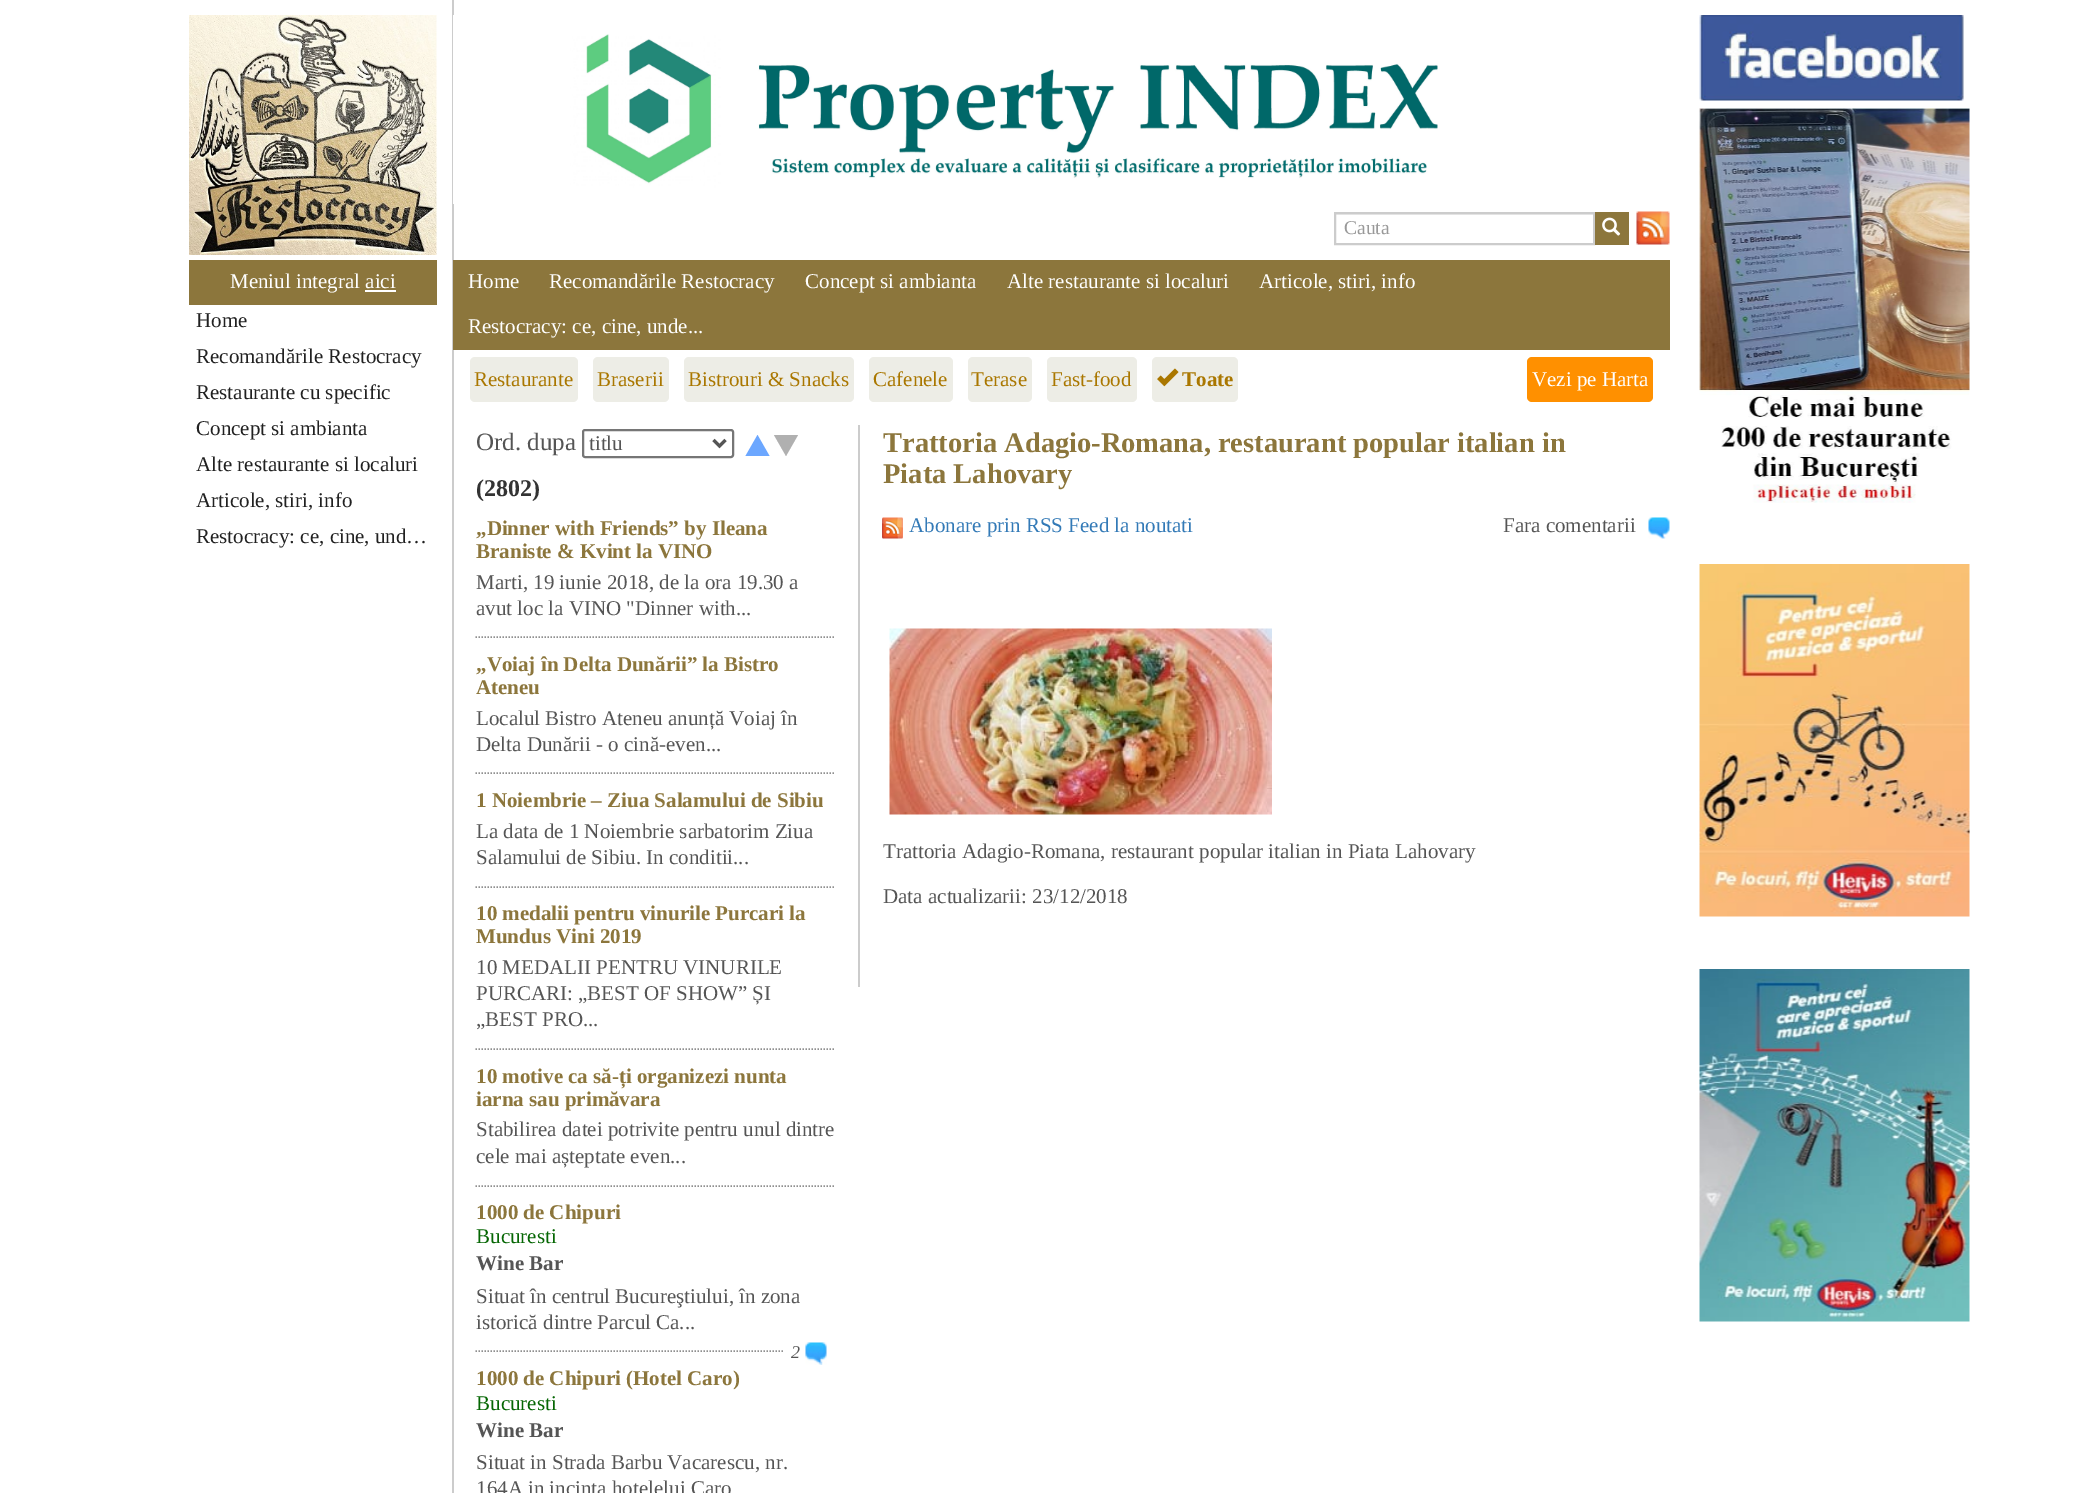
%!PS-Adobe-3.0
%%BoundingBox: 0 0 2086 1493
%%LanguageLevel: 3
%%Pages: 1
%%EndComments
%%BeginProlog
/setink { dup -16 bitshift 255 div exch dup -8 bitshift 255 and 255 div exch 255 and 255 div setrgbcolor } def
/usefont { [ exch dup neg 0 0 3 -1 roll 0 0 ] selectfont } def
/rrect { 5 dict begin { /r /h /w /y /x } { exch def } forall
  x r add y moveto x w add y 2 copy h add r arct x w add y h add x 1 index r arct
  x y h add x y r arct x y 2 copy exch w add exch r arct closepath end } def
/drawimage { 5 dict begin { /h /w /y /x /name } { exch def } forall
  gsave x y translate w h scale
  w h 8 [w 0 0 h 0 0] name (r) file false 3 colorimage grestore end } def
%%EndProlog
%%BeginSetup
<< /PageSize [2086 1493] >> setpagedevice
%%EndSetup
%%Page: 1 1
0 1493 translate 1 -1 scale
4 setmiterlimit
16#FFFFFF setink
0 0 2086 1493 rectfill
(img1.raw) 189 15 248 240 drawimage
16#8C763C setink
189 260 248 45 rectfill
/LiberationSerif-Regular 21 usefont
16#FFFFFF setink
230 288 moveto (Meniul integral aici) show
365 290 31 2 rectfill
16#212121 setink
[
    [(Home) 196 327]
    [(Recomandările Restocracy) 196 363]
    [(Restaurante cu specific) 196 399]
    [(Concept si ambianta) 196 435]
    [(Alte restaurante si localuri) 196 471]
    [(Articole, stiri, info) 196 507]
    [(Restocracy: ce, cine, und…) 196 543]
] { aload pop moveto show } forall
16#CCCCCC setink
452 0 2 1493 rectfill
(img2.raw) 453 15 985 189 drawimage
16#ECECEC setink
1335 214 258 1 rectfill
16#CCCCCC setink
2 setlinewidth
1335 213 259 31 rectstroke
/LiberationSerif-Regular 19.5 usefont
16#999999 setink
1344 234 moveto (Cauta) show
16#8C763C setink
1595 212 34 33 rectfill
(img3.raw) 1602 217 19 19 drawimage
(img4.raw) 1636 211 34 34 drawimage
453 260 1217 90 rectfill
/LiberationSerif-Regular 21 usefont
16#FFFFFF setink
[
    [(Home) 468 288]
    [(Recomandările Restocracy) 549 288]
    [(Concept si ambianta) 805 288]
    [(Alte restaurante si localuri) 1007 288]
    [(Articole, stiri, info) 1259 288]
    [(Restocracy: ce, cine, unde...) 468 333]
] { aload pop moveto show } forall
16#EDEDE6 setink
470 357 108 45 5 rrect fill
16#AA7700 setink
474 386 moveto (Restaurante) show
16#EDEDE6 setink
593 357 76 45 5 rrect fill
16#AA7700 setink
597 386 moveto (Braserii) show
16#EDEDE6 setink
684 357 170 45 5 rrect fill
16#AA7700 setink
688 386 moveto (Bistrouri & Snacks) show
16#EDEDE6 setink
869 357 84 45 5 rrect fill
16#AA7700 setink
873 386 moveto (Cafenele) show
16#EDEDE6 setink
968 357 64 45 5 rrect fill
16#AA7700 setink
971 386 moveto (Terase) show
16#EDEDE6 setink
1047 357 90 45 5 rrect fill
16#AA7700 setink
1051 386 moveto (Fast-food) show
16#EDEDE6 setink
1152 357 86 45 5 rrect fill
(img5.raw) 1157 368 22 19 drawimage
/LiberationSerif-Bold 21 usefont
16#AA7700 setink
1182 386 moveto (Toate) show
16#FF9000 setink
1527 357 126 45 5 rrect fill
/LiberationSerif-Regular 21 usefont
16#FFFFFF setink
1532 386 moveto (Vezi pe Harta) show
/LiberationSerif-Regular 25 usefont
16#555555 setink
476 450 moveto (Ord. dupa) show
16#767676 setink
583 430 150 27 2 rrect stroke
16#555555 setink
3 setlinewidth
713.5 440 moveto 719.5 446 lineto 725.5 440 lineto stroke
/LiberationSerif-Regular 21 usefont
589 450 moveto (titlu) show
16#6CA7FF setink
769.5 456 moveto 745.5 456 lineto 757.5 435 lineto closepath fill
16#B0B0B0 setink
774 435 moveto 798 435 lineto 786 456 lineto closepath fill
/LiberationSerif-Bold 24 usefont
16#333333 setink
476 496 moveto (\(2802\)) show
/LiberationSerif-Bold 21 usefont
16#8C763C setink
476 535 moveto („Dinner with Friends” by Ileana) show
476 558 moveto (Braniste & Kvint la VINO) show
/LiberationSerif-Regular 21 usefont
16#555555 setink
476 589 moveto (Marti, 19 iunie 2018, de la ora 19.30 a) show
476 615 moveto (avut loc la VINO "Dinner with...) show
16#8F8F8F setink
1.5 setlinewidth
[1.5 1.5] 0 setdash
475.5 637 moveto 835.5 637 lineto stroke
/LiberationSerif-Bold 21 usefont
16#8C763C setink
476 671 moveto („Voiaj în Delta Dunării” la Bistro) show
476 694 moveto (Ateneu) show
/LiberationSerif-Regular 21 usefont
16#555555 setink
476 725 moveto (Localul Bistro Ateneu anunță Voiaj în) show
476 751 moveto (Delta Dunării - o cină-even...) show
16#8F8F8F setink
475.5 773 moveto 835.5 773 lineto stroke
/LiberationSerif-Bold 21 usefont
16#8C763C setink
476 807 moveto (1 Noiembrie – Ziua Salamului de Sibiu) show
/LiberationSerif-Regular 21 usefont
16#555555 setink
476 838 moveto (La data de 1 Noiembrie sarbatorim Ziua) show
476 864 moveto (Salamului de Sibiu. In conditii...) show
16#8F8F8F setink
475.5 887 moveto 835.5 887 lineto stroke
/LiberationSerif-Bold 21 usefont
16#8C763C setink
476 920 moveto (10 medalii pentru vinurile Purcari la) show
476 943 moveto (Mundus Vini 2019) show
/LiberationSerif-Regular 21 usefont
16#555555 setink
[
    [(10 MEDALII PENTRU VINURILE) 476 974]
    [(PURCARI: „BEST OF SHOW” ȘI) 476 1000]
    [(„BEST PRO...) 476 1026]
] { aload pop moveto show } forall
16#8F8F8F setink
475.5 1049 moveto 835.5 1049 lineto stroke
/LiberationSerif-Bold 21 usefont
16#8C763C setink
476 1083 moveto (10 motive ca să-ți organizezi nunta) show
476 1106 moveto (iarna sau primăvara) show
/LiberationSerif-Regular 21 usefont
16#555555 setink
476 1136 moveto (Stabilirea datei potrivite pentru unul dintre) show
476 1163 moveto (cele mai așteptate even...) show
16#8F8F8F setink
475.5 1186 moveto 835.5 1186 lineto stroke
/LiberationSerif-Bold 21 usefont
16#8C763C setink
476 1219 moveto (1000 de Chipuri) show
/LiberationSerif-Regular 21 usefont
16#056603 setink
476 1243 moveto (Bucuresti) show
/LiberationSerif-Bold 21 usefont
16#555555 setink
476 1270 moveto (Wine Bar) show
/LiberationSerif-Regular 21 usefont
476 1303 moveto (Situat în centrul Bucureştiului, în zona) show
476 1329 moveto (istorică dintre Parcul Ca...) show
16#8F8F8F setink
475.5 1351 moveto 835.5 1351 lineto stroke
16#FFFFFF setink
784 1350 50 2 rectfill
/LiberationSerif-Italic 18 usefont
16#555555 setink
791 1358 moveto (2) show
(img6.raw) 805 1342 22 23 drawimage
/LiberationSerif-Bold 21 usefont
16#8C763C setink
476 1385 moveto (1000 de Chipuri \(Hotel Caro\)) show
/LiberationSerif-Regular 21 usefont
16#056603 setink
476 1410 moveto (Bucuresti) show
/LiberationSerif-Bold 21 usefont
16#555555 setink
476 1437 moveto (Wine Bar) show
/LiberationSerif-Regular 21 usefont
476 1469 moveto (Situat in Strada Barbu Vacarescu, nr.) show
476 1495 moveto (164A in incinta hotelelui Caro) show
16#CCCCCC setink
858 425 2 562 rectfill
/LiberationSerif-Bold 28.5 usefont
16#8C763C setink
883 452 moveto (Trattoria Adagio-Romana, restaurant popular italian in) show
883 483 moveto (Piata Lahovary) show
(img7.raw) 882 517 21 22 drawimage
/LiberationSerif-Regular 21 usefont
16#337AB7 setink
909 532 moveto (Abonare prin RSS Feed la noutati) show
16#555555 setink
1503 532 moveto (Fara comentarii) show
(img8.raw) 1648 517 22 22 drawimage
(img9.raw) 889 628 383 187 drawimage
883 858 moveto (Trattoria Adagio-Romana, restaurant popular italian in Piata Lahovary) show
883 903 moveto (Data actualizarii: 23/12/2018) show
(img10.raw) 1699 15 265 86 drawimage
(img11.raw) 1699 108 271 395 drawimage
(img12.raw) 1699 564 271 353 drawimage
(img13.raw) 1699 969 271 353 drawimage
showpage
%%EOF
